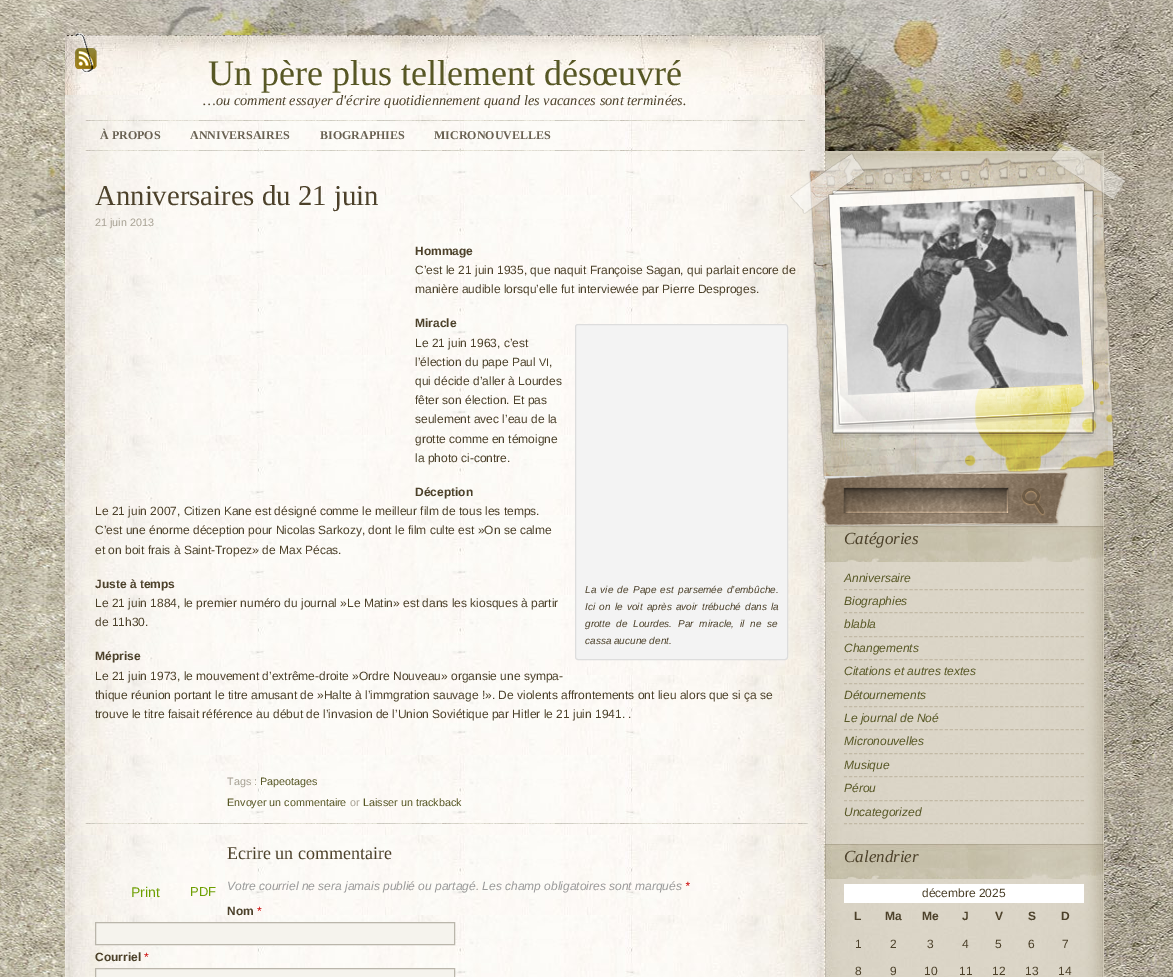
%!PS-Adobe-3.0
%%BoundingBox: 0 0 1173 977
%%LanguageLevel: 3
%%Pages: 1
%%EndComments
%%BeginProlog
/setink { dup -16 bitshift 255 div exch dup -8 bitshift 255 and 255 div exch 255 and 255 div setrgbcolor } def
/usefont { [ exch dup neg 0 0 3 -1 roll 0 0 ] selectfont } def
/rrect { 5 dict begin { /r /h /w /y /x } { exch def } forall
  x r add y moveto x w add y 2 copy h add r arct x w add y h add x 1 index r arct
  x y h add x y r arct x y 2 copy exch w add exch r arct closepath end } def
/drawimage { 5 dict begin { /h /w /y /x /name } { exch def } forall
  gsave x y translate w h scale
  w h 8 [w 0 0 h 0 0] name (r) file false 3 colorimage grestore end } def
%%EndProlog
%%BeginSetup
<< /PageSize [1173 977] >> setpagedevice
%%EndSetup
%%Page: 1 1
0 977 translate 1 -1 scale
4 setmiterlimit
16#FFFFFF setink
0 0 1173 977 rectfill
(img1.raw) 0 391 1173 586 drawimage
(img2.raw) 0 0 1173 391 drawimage
(img3.raw) 65 95 760 882 drawimage
(img4.raw) 65 35 760 60 drawimage
(img5.raw) 75 33 22 40 drawimage
/LiberationSerif-Regular 36 usefont
16#575725 setink
208 85 moveto (Un père plus tellement désœuvré) show
/LiberationSerif-Italic 14.4 usefont
16#4C412A setink
203 105 moveto (…ou comment essayer d'écrire quotidiennement quand les vacances sont terminées.) show
(img6.raw) 85 120 720 1 drawimage
(img6.raw) 85 150 720 1 drawimage
/LiberationSerif-Bold 12 usefont
16#696152 setink
[
    [(À PROPOS) 100 139]
    [(ANNIVERSAIRES) 190 139]
    [(BIOGRAPHIES) 320 139]
    [(MICRONOUVELLES) 434 139]
] { aload pop moveto show } forall
(img7.raw) 85 823 723 1 drawimage
/LiberationSerif-Regular 28.75 usefont
16#4C412A setink
95 205 moveto (Anniversaires du 21 juin) show
/LiberationSans-Regular 10.75 usefont
16#A7A193 setink
95 226 moveto (21 juin 2013) show
/LiberationSans-Bold 12 usefont
16#4C412A setink
415 255 moveto (Hommage) show
/LiberationSans-Regular 12 usefont
415 274 moveto (C’est le 21 juin 1935, que naquit Françoise Sagan, qui parlait encore de) show
415 293 moveto (manière audible lorsqu’elle fut interviewée par Pierre Desproges.) show
/LiberationSans-Bold 12 usefont
415 327 moveto (Miracle) show
/LiberationSans-Regular 12 usefont
415 347 moveto (Le 21 juin 1963, c’est) show
415 366 moveto (l’élection du pape Paul) show
/LiberationSans-Regular 10.75 usefont
539 366 moveto (VI) show
/LiberationSans-Regular 12 usefont
[
    [(,) 549 366]
    [(qui décide d’aller à Lourdes) 415 385]
    [(fêter son élection. Et pas) 415 404]
    [(seulement avec l’eau de la) 415 423]
    [(grotte comme en témoigne) 415 443]
    [(la photo ci-contre.) 415 462]
] { aload pop moveto show } forall
/LiberationSans-Bold 12 usefont
415 496 moveto (Déception) show
/LiberationSans-Regular 12 usefont
[
    [(Le 21 juin 2007, Citizen Kane est désigné comme le meilleur film de tous les temps.) 95 515]
    [(C’est une énorme déception pour Nicolas Sarkozy, dont le film culte est »On se calme) 95 534]
    [(et on boit frais à Saint-Tropez» de Max Pécas.) 95 554]
] { aload pop moveto show } forall
/LiberationSans-Bold 12 usefont
95 588 moveto (Juste à temps) show
/LiberationSans-Regular 12 usefont
95 607 moveto (Le 21 juin 1884, le premier numéro du journal »Le Matin» est dans les kiosques à partir) show
95 626 moveto (de 11h30.) show
16#F3F3F3 setink
575.5 324.5 212 335 2.5 rrect gsave fill grestore
16#DDDDDD setink
stroke
/LiberationSans-Italic 10 usefont
16#4C412A setink
585 593 moveto 1.5 0 32 (La vie de Pape est parsemée d’embûche.) widthshow
585 610 moveto 1.5 0 32 (Ici on le voit après avoir trébuché dans la) widthshow
585 627 moveto 3 0 32 (grotte de Lourdes. Par miracle, il ne se) widthshow
585 644 moveto (cassa aucune dent.) show
/LiberationSans-Bold 12 usefont
95 660 moveto (Méprise) show
/LiberationSans-Regular 12 usefont
[
    [(Le 21 juin 1973, le mouvement d’extrême-droite »Ordre Nouveau» organsie une sympa-) 95 680]
    [(thique réunion portant le titre amusant de »Halte à l’immgration sauvage !». De violents affrontements ont lieu alors que si ça se) 95 699]
    [(trouve le titre faisait référence au début de l’invasion de l’Union Soviétique par Hitler le 21 juin 1941. .) 95 718]
] { aload pop moveto show } forall
/LiberationSans-Regular 14 usefont
16#6D9F00 setink
131 897 moveto (Print) show
/LiberationSans-Regular 13 usefont
190 896 moveto (PDF) show
/LiberationSans-Regular 10.75 usefont
16#A7A193 setink
227 785 moveto (Tags :) show
16#575725 setink
260 785 moveto (Papeotages) show
227 806 moveto (Envoyer un commentaire) show
16#A7A193 setink
350 806 moveto (or) show
16#575725 setink
363 806 moveto (Laisser un trackback) show
/LiberationSerif-Regular 18 usefont
16#4C412A setink
227 859 moveto (Ecrire un commentaire) show
/LiberationSans-Italic 12 usefont
16#999999 setink
227 890 moveto (Votre courriel ne sera jamais publié ou partagé. Les champ obligatoires sont marqués) show
16#CC0000 setink
685 890 moveto (*) show
/LiberationSans-Bold 12 usefont
16#4C412A setink
227 915 moveto (Nom) show
/LiberationSans-Regular 12 usefont
16#CC0000 setink
257 915 moveto (*) show
16#F5F3ED setink
95.5 922.5 moveto 454.5 922.5 lineto 454.5 944.5 lineto 95.5 944.5 lineto closepath gsave fill grestore
16#BAB6AB setink
stroke
/LiberationSans-Bold 12 usefont
16#4C412A setink
95 961 moveto (Courriel) show
/LiberationSans-Regular 12 usefont
16#CC0000 setink
144 961 moveto (*) show
16#F5F3ED setink
95.5 968.5 moveto 454.5 968.5 lineto 454.5 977.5 lineto 95.5 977.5 lineto closepath gsave fill grestore
16#BAB6AB setink
stroke
(img8.raw) 824 211 280 766 drawimage
(img9.raw) 824 151 280 60 drawimage
(img13.raw) 820 472 249 54 drawimage
(img10.raw) 790 141 336 340 drawimage
(img12.raw) 838 196 245 217 drawimage
(img11.raw) 826 182 271 247 drawimage
(img14.raw) 1021 488 24 28 drawimage
(img15.raw) 824 526 280 36 drawimage
/LiberationSerif-Italic 17 usefont
16#4C412A setink
844 544 moveto (Catégories) show
16#C2B9A5 setink
[3 2.04] 0 setdash
844 589.5 moveto 1084 589.5 lineto stroke
/LiberationSans-Italic 12 usefont
16#575725 setink
844 582 moveto (Anniversaire) show
16#C2B9A5 setink
844 612.5 moveto 1084 612.5 lineto stroke
16#575725 setink
844 605 moveto (Biographies) show
16#C2B9A5 setink
844 636.5 moveto 1084 636.5 lineto stroke
16#575725 setink
844 628 moveto (blabla) show
16#C2B9A5 setink
844 659.5 moveto 1084 659.5 lineto stroke
16#575725 setink
844 652 moveto (Changements) show
16#C2B9A5 setink
844 683.5 moveto 1084 683.5 lineto stroke
16#575725 setink
844 675 moveto (Citations et autres textes) show
16#C2B9A5 setink
844 706.5 moveto 1084 706.5 lineto stroke
16#575725 setink
844 699 moveto (Détournements) show
16#C2B9A5 setink
844 729.5 moveto 1084 729.5 lineto stroke
16#575725 setink
844 722 moveto (Le journal de Noé) show
16#C2B9A5 setink
844 753.5 moveto 1084 753.5 lineto stroke
16#575725 setink
844 745 moveto (Micronouvelles) show
16#C2B9A5 setink
844 776.5 moveto 1084 776.5 lineto stroke
16#575725 setink
844 769 moveto (Musique) show
16#C2B9A5 setink
844 800.5 moveto 1084 800.5 lineto stroke
16#575725 setink
844 792 moveto (Pérou) show
16#C2B9A5 setink
844 823.5 moveto 1084 823.5 lineto stroke
16#575725 setink
844 816 moveto (Uncategorized) show
(img16.raw) 824 844 280 35 drawimage
/LiberationSerif-Italic 17 usefont
16#4C412A setink
844 862 moveto (Calendrier) show
16#FFFFFF setink
844 884 240 19 rectfill
/LiberationSans-Regular 12 usefont
16#4C412A setink
922 897 moveto (décembre 2025) show
/LiberationSans-Bold 12 usefont
[
    [(L) 854 920]
    [(Ma) 885 920]
    [(Me) 922 920]
    [(J) 962 920]
    [(V) 995 920]
    [(S) 1028 920]
    [(D) 1061 920]
] { aload pop moveto show } forall
/LiberationSans-Regular 12 usefont
[
    [(1) 855 948]
    [(2) 890 948]
    [(3) 927 948]
    [(4) 962 948]
    [(5) 995 948]
    [(6) 1028 948]
    [(7) 1062 948]
    [(8) 855 975]
    [(9) 890 975]
    [(10) 924 975]
    [(11) 959 975]
    [(12) 992 975]
    [(13) 1025 975]
    [(14) 1058 975]
] { aload pop moveto show } forall
showpage
%%EOF
